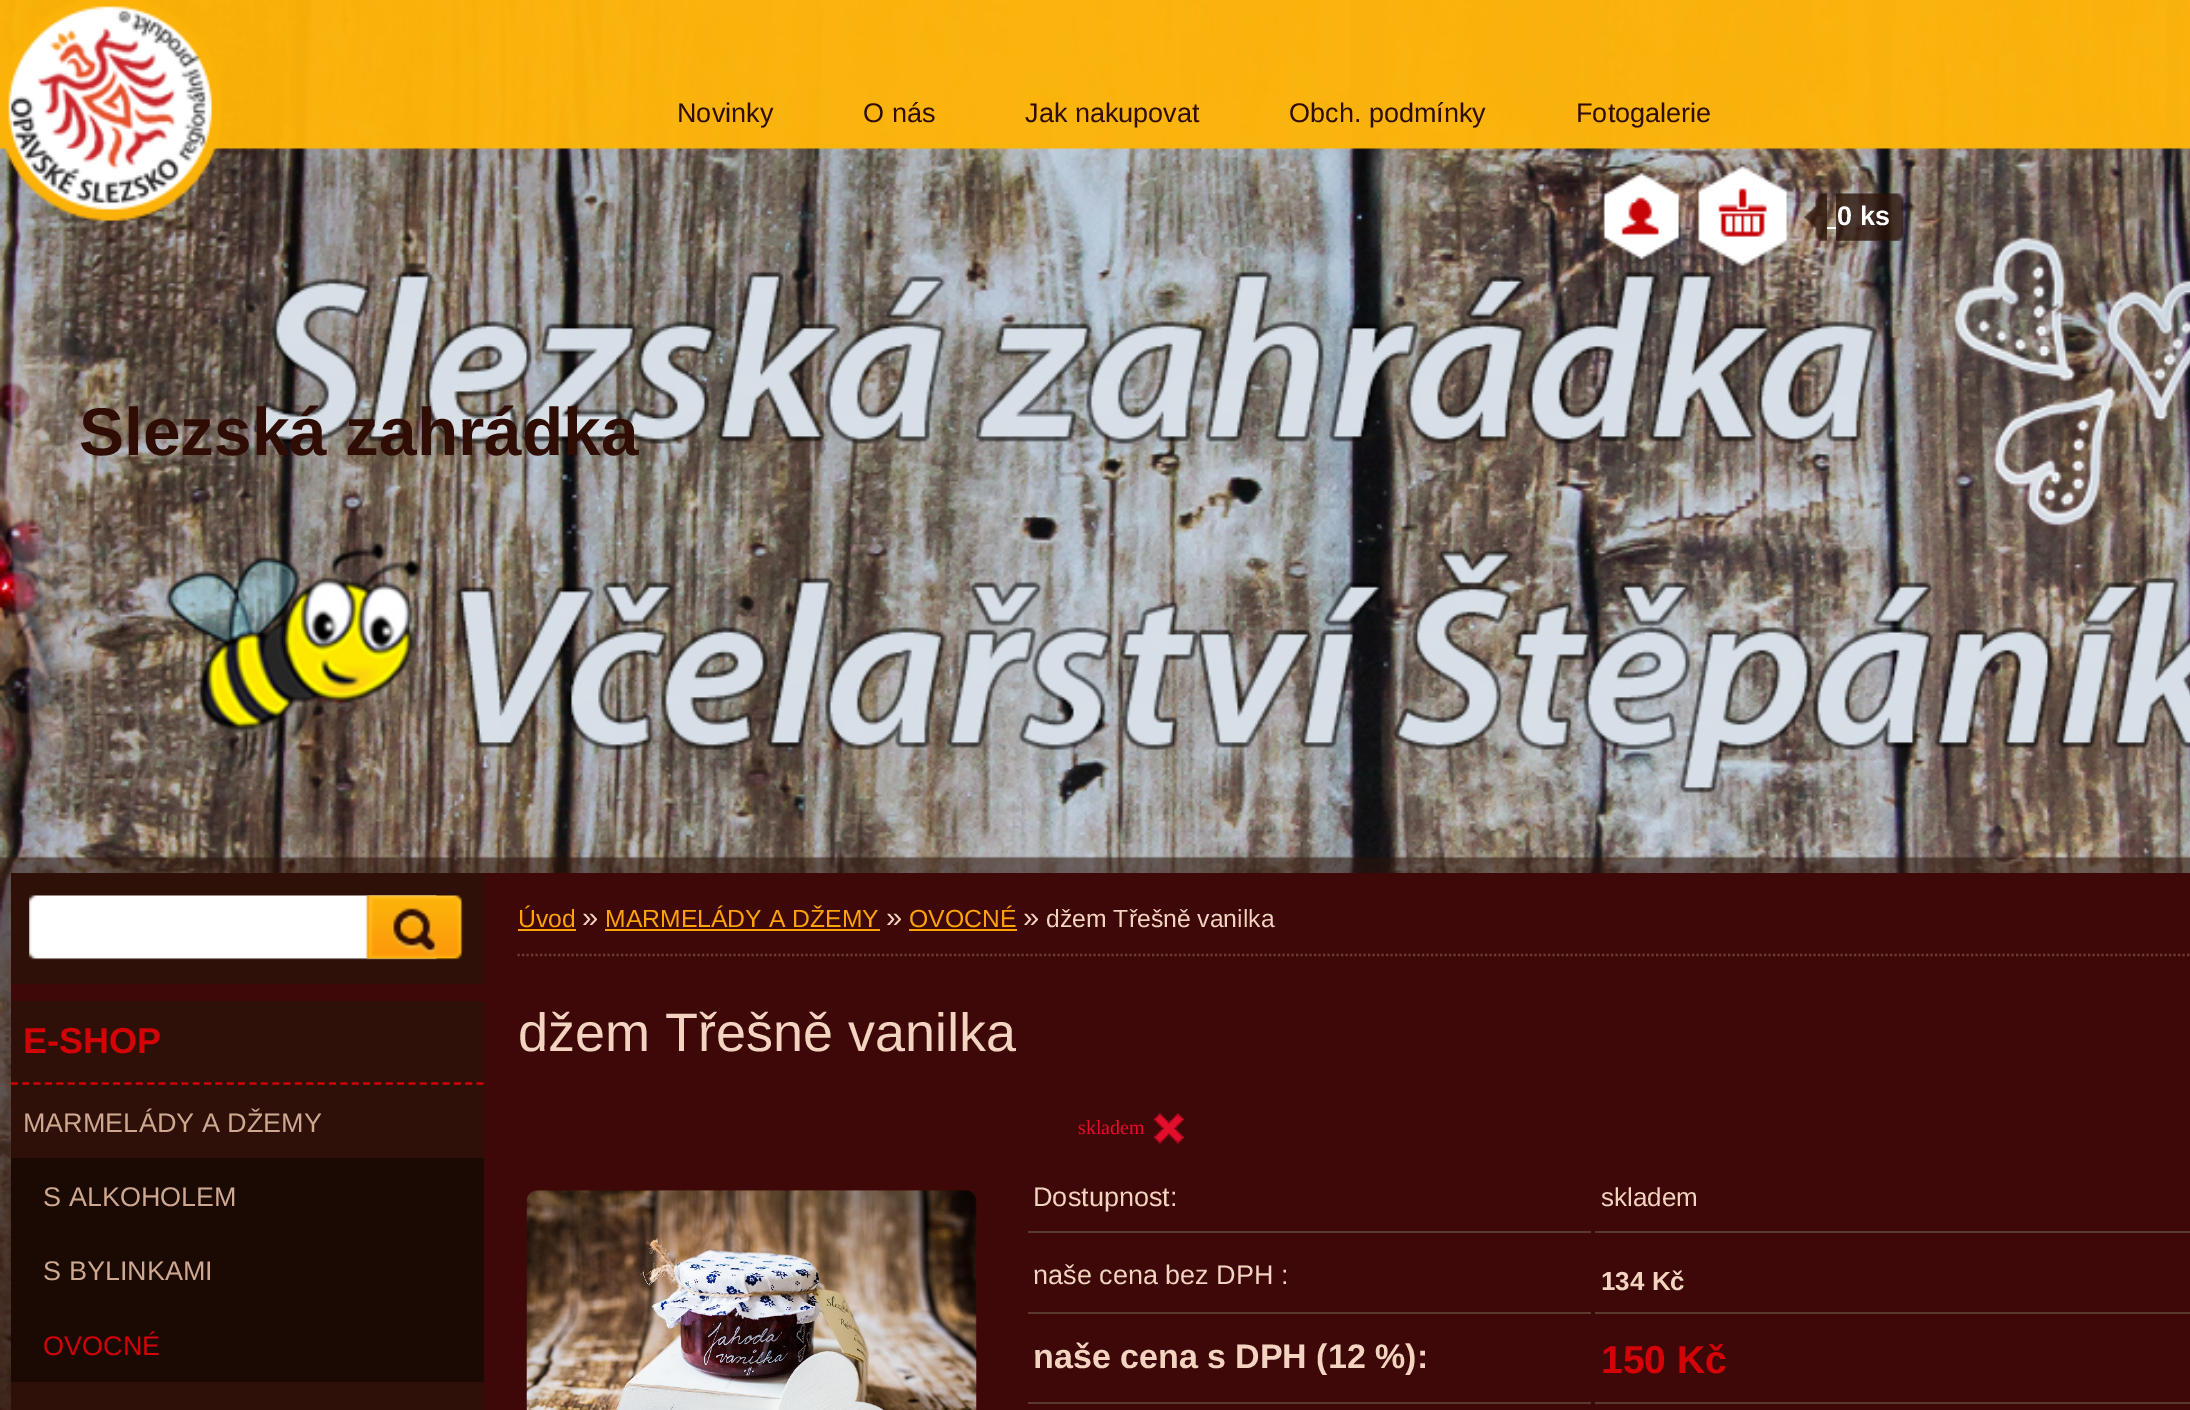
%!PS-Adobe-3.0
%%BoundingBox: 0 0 2190 1410
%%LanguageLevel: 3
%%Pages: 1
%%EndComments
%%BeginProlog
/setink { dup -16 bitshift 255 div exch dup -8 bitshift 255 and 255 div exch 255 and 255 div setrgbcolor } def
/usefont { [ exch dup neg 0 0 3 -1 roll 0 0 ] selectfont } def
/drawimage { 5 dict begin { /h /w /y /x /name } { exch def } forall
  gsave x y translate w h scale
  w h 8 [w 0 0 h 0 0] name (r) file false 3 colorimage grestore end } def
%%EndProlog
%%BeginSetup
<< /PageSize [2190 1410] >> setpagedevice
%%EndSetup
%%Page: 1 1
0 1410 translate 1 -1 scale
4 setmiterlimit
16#FFFFFF setink
0 0 2190 1410 rectfill
(img1.raw) 0 0 2190 1410 drawimage
/LiberationSans-Regular 27 usefont
16#2F0D05 setink
[
    [(Novinky) 677 122]
    [(O nás) 863 122]
    [(Jak nakupovat) 1025 122]
    [(Obch. podmínky) 1289 122]
    [(Fotogalerie) 1576 122]
] { aload pop moveto show } forall
(img2.raw) 1603 172 77 91 drawimage
(img3.raw) 1698 166 91 104 drawimage
(img4.raw) 1804 193 23 48 drawimage
(img5.raw) 1836 193 68 48 drawimage
/LiberationSans-Bold 27 usefont
16#FFFFFF setink
1837 225 moveto (0 ks) show
1827 227 9 2 rectfill
(img6.raw) 0 0 222 222 drawimage
/LiberationSans-Bold 67.5 usefont
16#2F0D05 setink
79 455 moveto (Slezská zahrádka) show
16#3F0808 setink
11 873 2179 537 rectfill
16#2E1008 setink
11 873 473 111 rectfill
(img7.raw) 29 895 409 65 drawimage
(img8.raw) 366 895 98 65 drawimage
11 1001 473 409 rectfill
16#D40208 setink
2.2 setlinewidth
[6.75 4.61] 0 setdash
11 1083.5 moveto 484 1083.5 lineto stroke
/LiberationSans-Bold 36 usefont
16#D40308 setink
23 1053 moveto (E-SHOP) show
/LiberationSans-Regular 27 usefont
16#CEA891 setink
23 1132 moveto (MARMELÁDY A DŽEMY) show
16#1B0A03 setink
11 1158 473 224 rectfill
16#CEA891 setink
43 1206 moveto (S ALKOHOLEM) show
43 1280 moveto (S BYLINKAMI) show
16#D40308 setink
43 1355 moveto (OVOCNÉ) show
16#6A3E32 setink
[2.25 2.25] 0 setdash
517.5 955 moveto 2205 955 lineto stroke
/LiberationSans-Regular 24.75 usefont
16#FCA30A setink
518 927 moveto (Úvod) show
518 929 58 2 rectfill
/LiberationSans-Regular 29 usefont
16#F3D4C0 setink
582 927 moveto (») show
/LiberationSans-Regular 24.75 usefont
16#FCA30A setink
605 927 moveto (MARMELÁDY A DŽEMY) show
605 929 275 2 rectfill
/LiberationSans-Regular 29 usefont
16#F3D4C0 setink
886 927 moveto (») show
/LiberationSans-Regular 24.75 usefont
16#FCA30A setink
909 927 moveto (OVOCNÉ) show
909 929 108 2 rectfill
/LiberationSans-Regular 29 usefont
16#F3D4C0 setink
1023 927 moveto (») show
/LiberationSans-Regular 24.75 usefont
1046 927 moveto (džem Třešně vanilka) show
/LiberationSans-Regular 54 usefont
518 1051 moveto (džem Třešně vanilka) show
(img9.raw) 526 1190 451 220 drawimage
(img10.raw) 1153 1113 32 31 drawimage
/LiberationSerif-Regular 20 usefont
16#E50D2C setink
1078 1134 moveto (skladem) show
16#583B2C setink
1028 1231 563 2 rectfill
/LiberationSans-Regular 27 usefont
16#F3D4C0 setink
1033 1206 moveto (Dostupnost:) show
16#583B2C setink
1595 1231 595 2 rectfill
/LiberationSans-Regular 26 usefont
16#F3D4C0 setink
1601 1206 moveto (skladem) show
16#583B2C setink
1028 1312 563 2 rectfill
/LiberationSans-Regular 27 usefont
16#F3D4C0 setink
1033 1284 moveto (naše cena bez DPH :) show
16#583B2C setink
1595 1312 595 2 rectfill
/LiberationSans-Bold 26 usefont
16#F3D4C0 setink
1601 1290 moveto (134 Kč) show
16#583B2C setink
1028 1402 563 2 rectfill
/LiberationSans-Bold 34 usefont
16#F3D4C0 setink
1033 1368 moveto (naše cena s DPH \(12 %\):) show
16#583B2C setink
1595 1402 595 2 rectfill
/LiberationSans-Bold 39 usefont
16#D40308 setink
1601 1373 moveto (150 Kč) show
showpage
%%EOF
